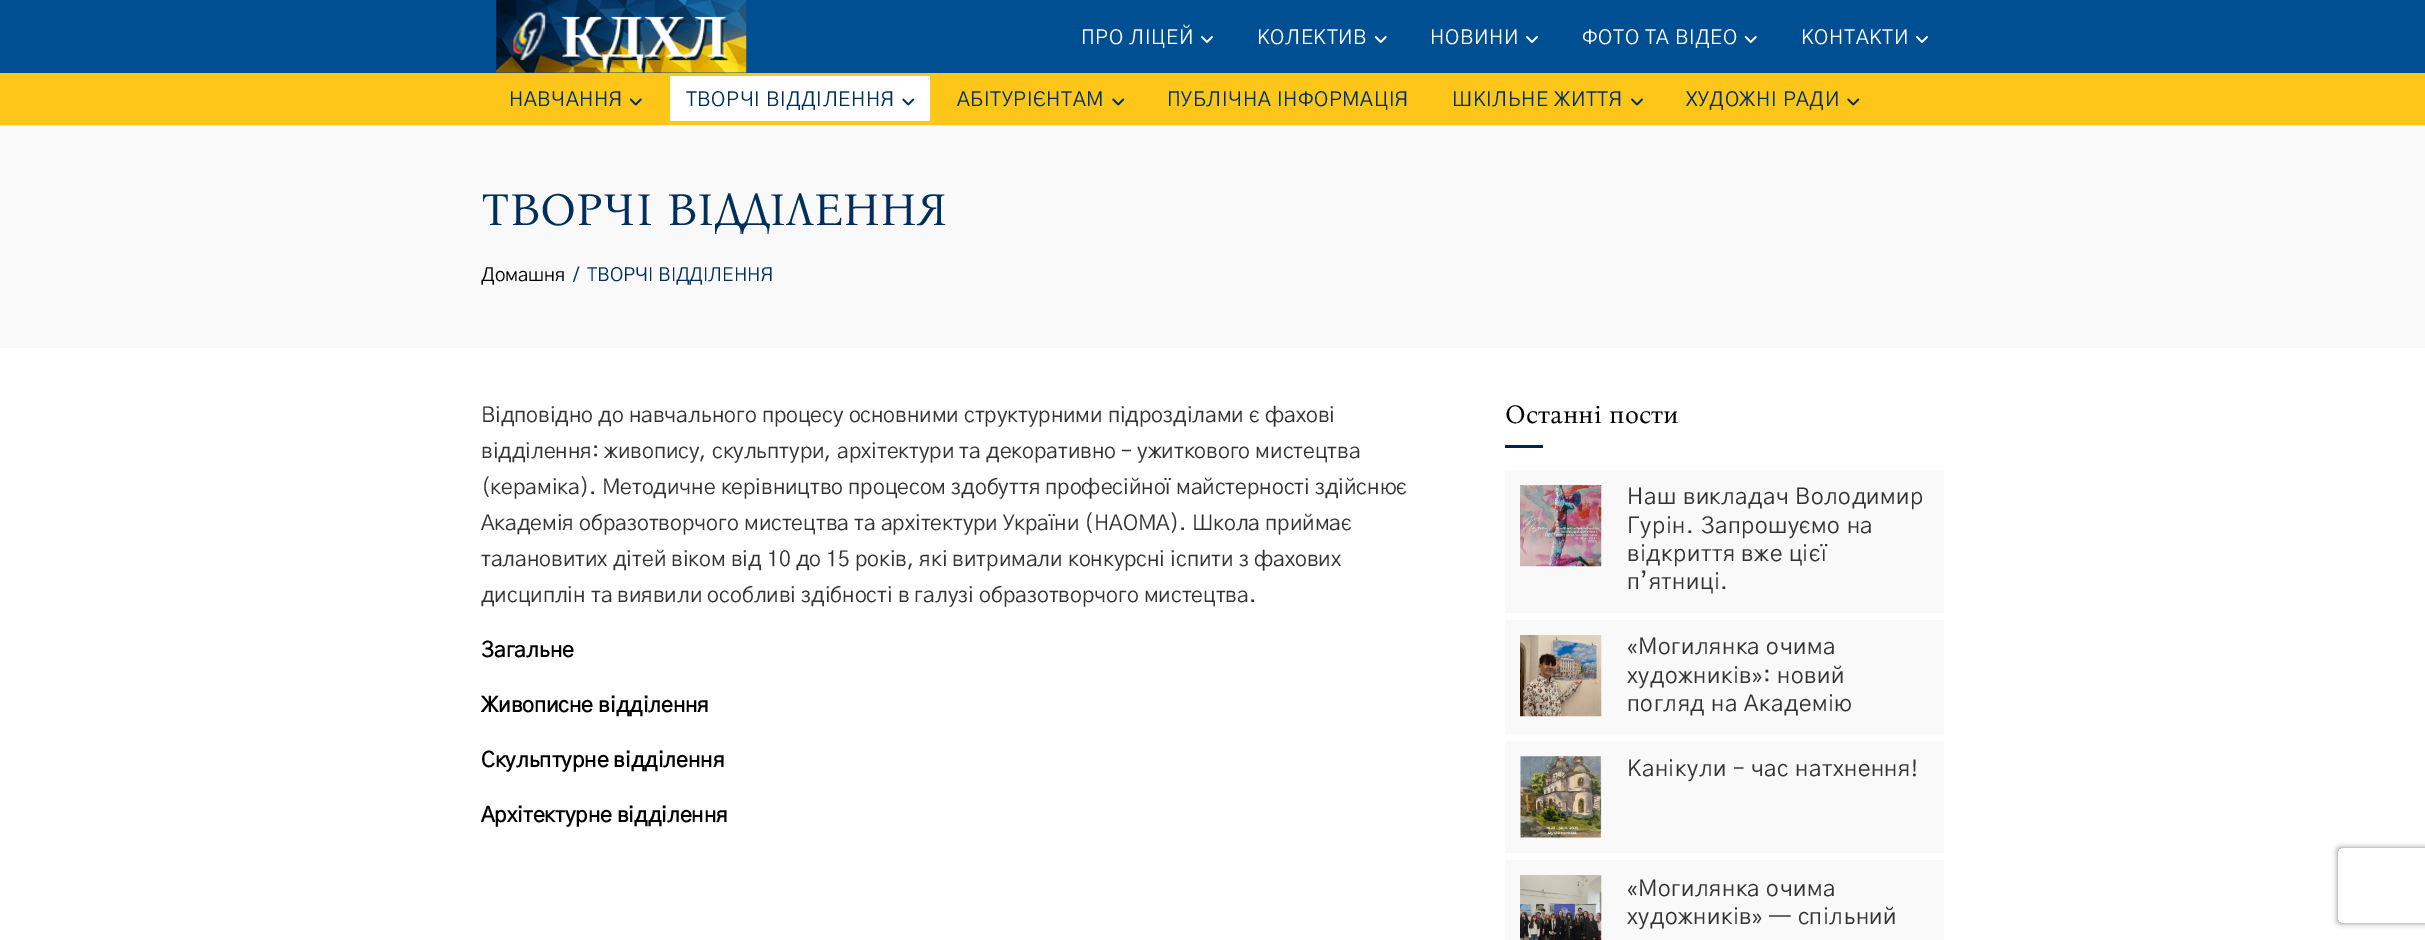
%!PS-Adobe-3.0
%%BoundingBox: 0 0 2425 940
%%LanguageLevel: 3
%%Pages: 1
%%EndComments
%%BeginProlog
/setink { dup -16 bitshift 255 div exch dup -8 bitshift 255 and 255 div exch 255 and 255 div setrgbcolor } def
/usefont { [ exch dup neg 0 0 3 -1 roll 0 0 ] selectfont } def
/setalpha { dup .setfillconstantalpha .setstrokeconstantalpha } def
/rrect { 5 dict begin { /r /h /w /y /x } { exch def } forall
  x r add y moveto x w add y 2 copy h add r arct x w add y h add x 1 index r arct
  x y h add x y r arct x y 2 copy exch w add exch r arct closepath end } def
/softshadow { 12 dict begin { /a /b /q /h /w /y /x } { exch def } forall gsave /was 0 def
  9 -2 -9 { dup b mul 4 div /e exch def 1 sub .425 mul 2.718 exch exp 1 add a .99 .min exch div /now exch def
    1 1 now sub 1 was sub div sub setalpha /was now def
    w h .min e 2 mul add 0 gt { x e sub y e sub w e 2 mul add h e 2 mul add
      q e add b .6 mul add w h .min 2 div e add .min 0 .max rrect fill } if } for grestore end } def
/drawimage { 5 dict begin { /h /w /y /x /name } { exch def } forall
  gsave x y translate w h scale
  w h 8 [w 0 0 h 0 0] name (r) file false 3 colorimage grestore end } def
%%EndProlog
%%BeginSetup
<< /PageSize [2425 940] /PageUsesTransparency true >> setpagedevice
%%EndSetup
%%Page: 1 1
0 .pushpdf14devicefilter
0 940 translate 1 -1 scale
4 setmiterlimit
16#FFFFFF setink
0 0 2425 940 rectfill
16#004F92 setink
0 0 2425 73 rectfill
(img1.raw) 496 0 251 73 drawimage
/GothicA1-Regular 20 usefont
16#FFFFFF setink
1081 44 moveto 0.6 0 (ПРО ЛІЦЕЙ) ashow
(img2.raw) 1201 36 12 7 drawimage
1257 44 moveto 0.6 0 (КОЛЕКТИВ) ashow
(img3.raw) 1374 36 13 7 drawimage
1430 44 moveto 0.6 0 (НОВИНИ) ashow
(img2.raw) 1526 36 12 7 drawimage
1582 44 moveto 0.6 0 (ФОТО ТА ВІДЕО) ashow
(img3.raw) 1744 36 13 7 drawimage
1801 44 moveto 0.6 0 (КОНТАКТИ) ashow
(img2.raw) 1916 36 12 7 drawimage
16#FDC619 setink
0 73 2425 52 rectfill
16#002F5C setink
509 106 moveto 0.6 0 (НАВЧАННЯ) ashow
(img4.raw) 629 98 13 8 drawimage
16#FFFFFF setink
670 76 260 45 rectfill
16#002F5C setink
686 106 moveto 0.6 0 (ТВОРЧІ ВІДДІЛЕННЯ) ashow
(img5.raw) 902 98 13 8 drawimage
957 106 moveto 0.6 0 (АБІТУРІЄНТАМ) ashow
(img6.raw) 1112 98 13 8 drawimage
1167 106 moveto 0.6 0 (ПУБЛІЧНА ІНФОРМАЦІЯ) ashow
1452 106 moveto 0.6 0 (ШКІЛЬНЕ ЖИТТЯ) ashow
(img7.raw) 1631 98 12 8 drawimage
1686 106 moveto 0.6 0 (ХУДОЖНІ РАДИ) ashow
(img6.raw) 1847 98 13 8 drawimage
16#F9F9F9 setink
0 125 2425 223 rectfill
/BonaNovaSC-Regular 46 usefont
16#002F5C setink
481 225 moveto (ТВОРЧІ ВІДДІЛЕННЯ) show
/GothicA1-Regular 18.75 usefont
16#000000 setink
481 281 moveto (Домашня) show
16#002F5C setink
573 281 moveto (/) show
587 281 moveto (ТВОРЧІ ВІДДІЛЕННЯ) show
/GothicA1-Regular 21.25 usefont
16#333333 setink
[
    [(Відповідно до навчального процесу основними структурними підрозділами є фахові) 481 422]
    [(відділення: живопису, скульптури, архітектури та декоративно – ужиткового мистецтва) 481 458]
    [(\(кераміка\). Методичне керівництво процесом здобуття професійної майстерності здійснює) 481 494]
    [(Академія образотворчого мистецтва та архітектури України \(НАОМА\). Школа приймає) 481 530]
    [(талановитих дітей віком від 10 до 15 років, які витримали конкурсні іспити з фахових) 481 566]
    [(дисциплін та виявили особливі здібності в галузі образотворчого мистецтва.) 481 602]
] { aload pop moveto show } forall
/GothicA1-Bold 21.25 usefont
16#000000 setink
[
    [(Загальне) 481 657]
    [(Живописне відділення) 481 712]
    [(Скульптурне відділення) 481 767]
    [(Архітектурне відділення) 481 822]
] { aload pop moveto show } forall
/BonaNovaSC-Regular 26.25 usefont
1505 423 moveto (Останні пости) show
16#002349 setink
1505 445 38 3 rectfill
16#F9F9F9 setink
1505 470 439 143 rectfill
(img8.raw) 1520 485 82 82 drawimage
/GothicA1-Regular 22.5 usefont
16#333333 setink
1627 504 moveto 0.6 0 (Наш викладач Володимир) ashow
1627 533 moveto 0.6 0 (Гурін. Запрошуємо на) ashow
1627 561 moveto 0.6 0 (відкриття вже цієї) ashow
1627 589 moveto 0.6 0 (п’ятниці.) ashow
16#F9F9F9 setink
1505 620 439 114 rectfill
(img9.raw) 1520 635 82 82 drawimage
16#333333 setink
1627 654 moveto 0.6 0 («Могилянка очима) ashow
1627 683 moveto 0.6 0 (художників»: новий) ashow
1627 711 moveto 0.6 0 (погляд на Академію) ashow
16#F9F9F9 setink
1505 741 439 112 rectfill
(img10.raw) 1520 756 82 82 drawimage
16#333333 setink
1627 776 moveto 0.6 0 (Канікули – час натхнення!) ashow
16#F9F9F9 setink
1505 860 439 80 rectfill
(img11.raw) 1520 875 82 65 drawimage
16#333333 setink
1627 896 moveto 0.6 0 («Могилянка очима) ashow
1627 924 moveto 0.6 0 (художників» — спільний) ashow
gsave
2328 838 moveto 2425 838 lineto 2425 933 lineto 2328 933 lineto closepath 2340.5 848 moveto 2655.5 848 lineto 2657 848 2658 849 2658 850.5 curveto 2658 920.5 lineto 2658 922 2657 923 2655.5 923 curveto 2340.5 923 lineto 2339 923 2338 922 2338 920.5 curveto 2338 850.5 lineto 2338 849 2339 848 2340.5 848 curveto closepath eoclip newpath
16#808080 setink
2338 848 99 75 2.5 3 1 softshadow
grestore
.poppdf14devicefilter showpage
%%EOF
